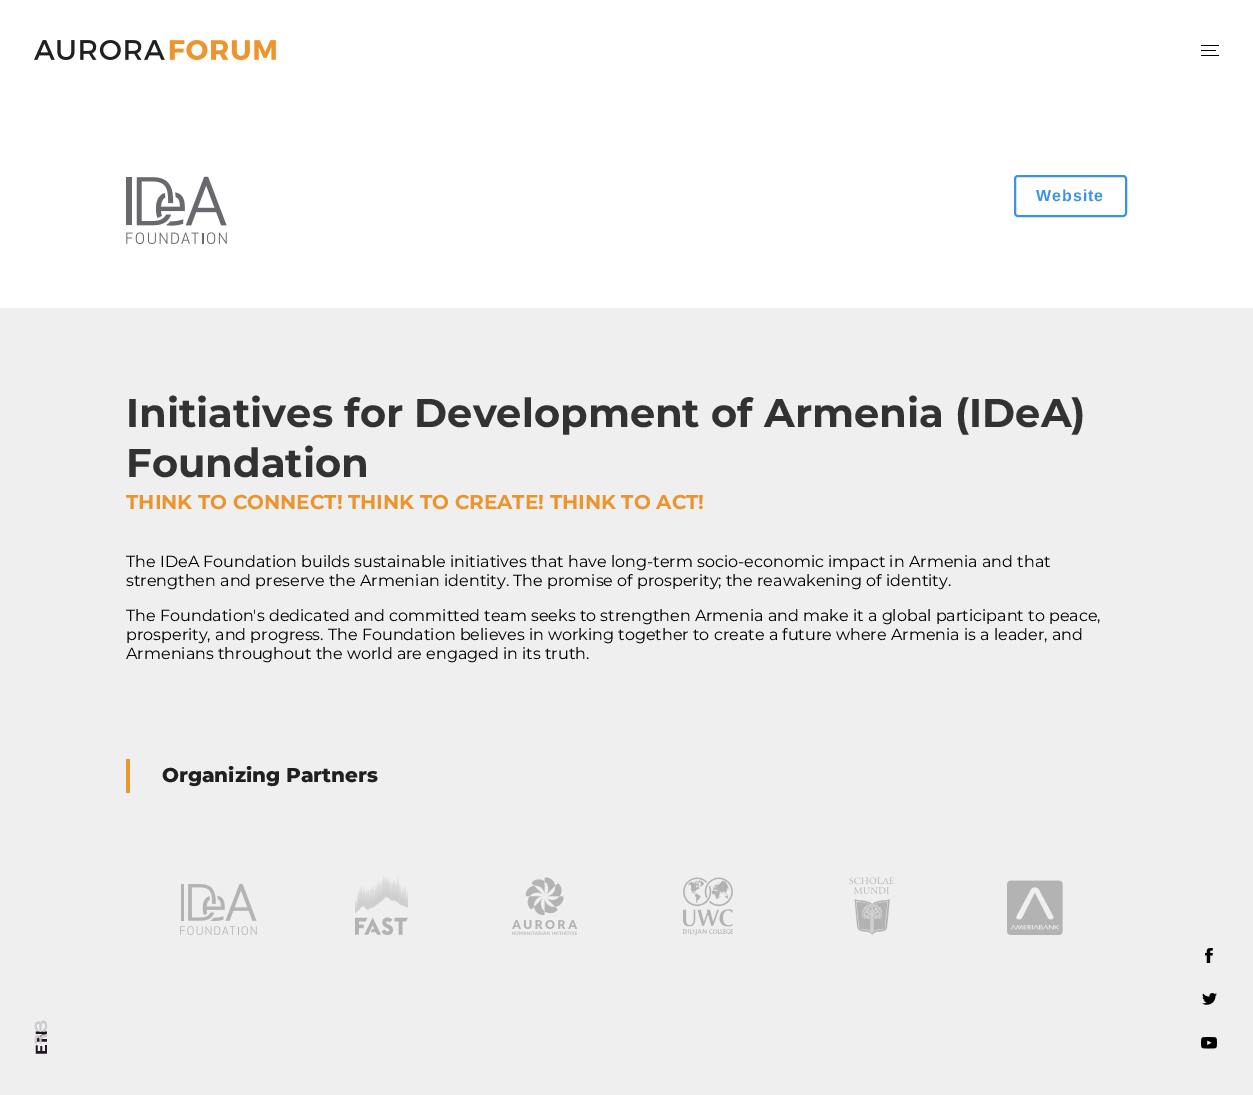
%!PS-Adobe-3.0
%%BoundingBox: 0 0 1253 1095
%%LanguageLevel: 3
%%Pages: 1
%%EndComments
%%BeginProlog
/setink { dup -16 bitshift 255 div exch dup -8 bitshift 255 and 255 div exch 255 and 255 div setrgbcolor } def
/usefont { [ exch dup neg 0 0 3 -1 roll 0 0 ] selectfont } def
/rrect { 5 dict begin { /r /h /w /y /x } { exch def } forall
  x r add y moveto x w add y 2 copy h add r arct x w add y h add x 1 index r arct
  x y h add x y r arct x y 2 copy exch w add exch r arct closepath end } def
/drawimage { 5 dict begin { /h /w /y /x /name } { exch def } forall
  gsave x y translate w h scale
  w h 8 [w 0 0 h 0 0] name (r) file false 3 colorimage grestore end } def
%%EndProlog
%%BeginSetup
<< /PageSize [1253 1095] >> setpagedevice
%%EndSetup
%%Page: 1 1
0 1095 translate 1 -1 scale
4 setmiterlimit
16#EEEFEE setink
0 0 1253 1095 rectfill
16#FFFFFF setink
0 0 1253 308 rectfill
(img1.raw) 126 176 101 68 drawimage
16#3E92E3 setink
2 setlinewidth
1015 176 111 40 3 rrect stroke
/LiberationSans-Bold 16 usefont
1036 201 moveto 1 0 (Website) ashow
/Montserrat-Bold 40 usefont
16#323232 setink
126 427 moveto (Initiatives for Development of Armenia \(IDeA\)) show
126 477 moveto (Foundation) show
/Montserrat-Bold 20 usefont
16#EC952D setink
126 509 moveto (THINK TO CONNECT! THINK TO CREATE! THINK TO ACT!) show
/Montserrat-Regular 16 usefont
16#000000 setink
[
    [(The IDeA Foundation builds sustainable initiatives that have long-term socio-economic impact in Armenia and that) 126 567]
    [(strengthen and preserve the Armenian identity. The promise of prosperity; the reawakening of identity.) 126 586]
    [(The Foundation's dedicated and committed team seeks to strengthen Armenia and make it a global participant to peace,) 126 621]
    [(prosperity, and progress. The Foundation believes in working together to create a future where Armenia is a leader, and) 126 640]
    [(Armenians throughout the world are engaged in its truth.) 126 659]
] { aload pop moveto show } forall
16#EC952D setink
126 759 4 34 rectfill
/Montserrat-ExtraBold 20 usefont
16#202020 setink
162 782 moveto (Organizing Partners) show
(img2.raw) 180 883 77 52 drawimage
(img3.raw) 355 875 53 60 drawimage
(img4.raw) 512 877 65 58 drawimage
(img5.raw) 683 877 50 58 drawimage
(img6.raw) 849 877 45 58 drawimage
(img7.raw) 1007 880 56 55 drawimage
(img8.raw) 34 40 242 20 drawimage
16#000000 setink
1201 45 18 1 0.5 rrect fill
1201 50 15 1 0.5 rrect fill
1201 55 18 1 0.5 rrect fill
/Montserrat-Bold 16 usefont
16#261328 setink
gsave 47 1055 translate -90 rotate 0 0 moveto 1 0 (EN) ashow grestore
/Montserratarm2-SemiBold 16 usefont
16#CDCACD setink
gsave 47 1045 translate -90 rotate 0 0 moveto 1 0 (ՀՅ) ashow grestore
(img9.raw) 1205 948 8 15 drawimage
(img10.raw) 1202 993 15 12 drawimage
(img11.raw) 1201 1037 16 12 drawimage
showpage
%%EOF
